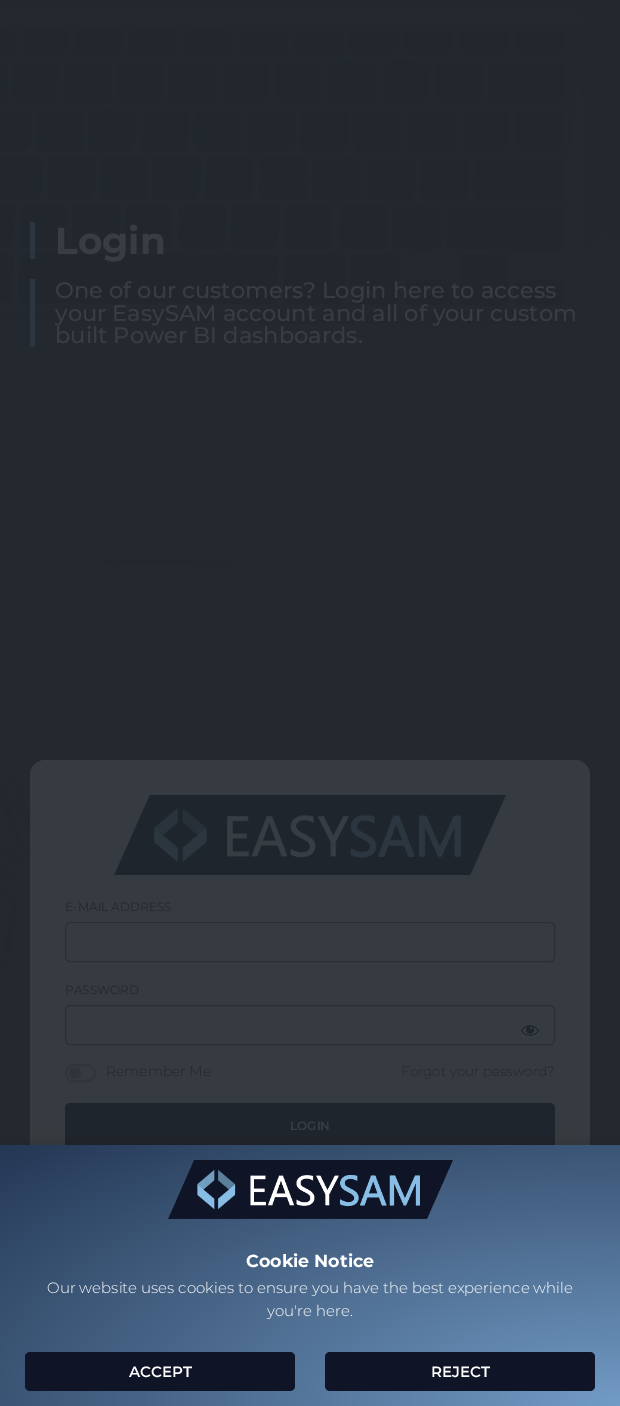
%!PS-Adobe-3.0
%%BoundingBox: 0 0 620 1406
%%LanguageLevel: 3
%%Pages: 1
%%EndComments
%%BeginProlog
/setink { dup -16 bitshift 255 div exch dup -8 bitshift 255 and 255 div exch 255 and 255 div setrgbcolor } def
/usefont { [ exch dup neg 0 0 3 -1 roll 0 0 ] selectfont } def
/setalpha { dup .setfillconstantalpha .setstrokeconstantalpha } def
/disc { newpath 0 360 arc closepath } def
/rrect { 5 dict begin { /r /h /w /y /x } { exch def } forall
  x r add y moveto x w add y 2 copy h add r arct x w add y h add x 1 index r arct
  x y h add x y r arct x y 2 copy exch w add exch r arct closepath end } def
/softshadow { 12 dict begin { /a /b /q /h /w /y /x } { exch def } forall gsave /was 0 def
  9 -2 -9 { dup b mul 4 div /e exch def 1 sub .425 mul 2.718 exch exp 1 add a .99 .min exch div /now exch def
    1 1 now sub 1 was sub div sub setalpha /was now def
    w h .min e 2 mul add 0 gt { x e sub y e sub w e 2 mul add h e 2 mul add
      q e add b .6 mul add w h .min 2 div e add .min 0 .max rrect fill } if } for grestore end } def
/drawimage { 5 dict begin { /h /w /y /x /name } { exch def } forall
  gsave x y translate w h scale
  w h 8 [w 0 0 h 0 0] name (r) file false 3 colorimage grestore end } def
%%EndProlog
%%BeginSetup
<< /PageSize [620 1406] /PageUsesTransparency true >> setpagedevice
%%EndSetup
%%Page: 1 1
0 .pushpdf14devicefilter
0 1406 translate 1 -1 scale
4 setmiterlimit
16#FFFFFF setink
0 0 620 1406 rectfill
(img1.raw) 0 0 620 1145 drawimage
16#2B3640 setink
30 222 5 37 rectfill
/Montserrat-Bold 37.5 usefont
16#373D42 setink
55 254 moveto (Login) show
16#2B3640 setink
30 279 5 68 rectfill
/Montserrat-Medium 22.5 usefont
16#373D42 setink
[
    [(One of our customers? Login here to access) 55 298]
    [(your EasySAM account and all of your custom) 55 321]
    [(built Power BI dashboards.) 55 343]
] { aload pop moveto show } forall
16#21272D setink
30 760 560 424 15 5 0.9 softshadow
16#353B40 setink
30 760 560 424 15 rrect fill
(img2.raw) 114 795 392 80 drawimage
/Montserrat-Regular 12 usefont
16#21272D setink
65 911 moveto (E-MAIL ADDRESS) show
0.6 setalpha
65.5 922.5 489 39 4.5 rrect stroke
1 setalpha
65 994 moveto (PASSWORD) show
0.6 setalpha
65.5 1005.5 489 39 4.5 rrect stroke
1 setalpha
(img3.raw) 521 1025 18 12 drawimage
16#30353B setink
2 setlinewidth
66 1065 29 16 8 rrect stroke
75 1073 6 disc fill
/Montserrat-Light 14 usefont
16#21272D setink
106 1076 moveto (Remember Me) show
/Montserrat-Light 13.5 usefont
401 1076 moveto (Forgot your password?) show
16#1F252C setink
65 1103 490 46 5 rrect fill
/Montserrat-SemiBold 12 usefont
16#373D42 setink
290 1130 moveto (LOGIN) show
16#000000 setink
-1 1150 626 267 0 11.5 0.2 softshadow
gsave 0 1145 moveto 620 1145 lineto 620 1406 lineto 0 1406 lineto closepath clip newpath 620 1406 translate 877 369 scale
<< /ShadingType 3 /ColorSpace /DeviceRGB /Coords [0 0 0 0 0 1] /Extend [true true] /Function << /FunctionType 2 /Domain [0 1] /C0 [0.447 0.608 0.773] /C1 [0.141 0.216 0.329] /N 1 >> >> shfill grestore
(img4.raw) 168 1160 285 59 drawimage
/Montserrat-Bold 17.5 usefont
16#FFFFFF setink
246 1267 moveto (Cookie Notice) show
/Montserrat-Light 15 usefont
47 1293 moveto (Our website uses cookies to ensure you have the best experience while) show
267 1316 moveto (you're here.) show
16#0F1427 setink
25 1352 270 39 5 rrect fill
/Montserrat-SemiBold 15 usefont
16#FFFFFF setink
129 1377 moveto (ACCEPT) show
16#0F1427 setink
325 1352 270 39 5 rrect fill
16#FFFFFF setink
431 1377 moveto (REJECT) show
.poppdf14devicefilter showpage
%%EOF
